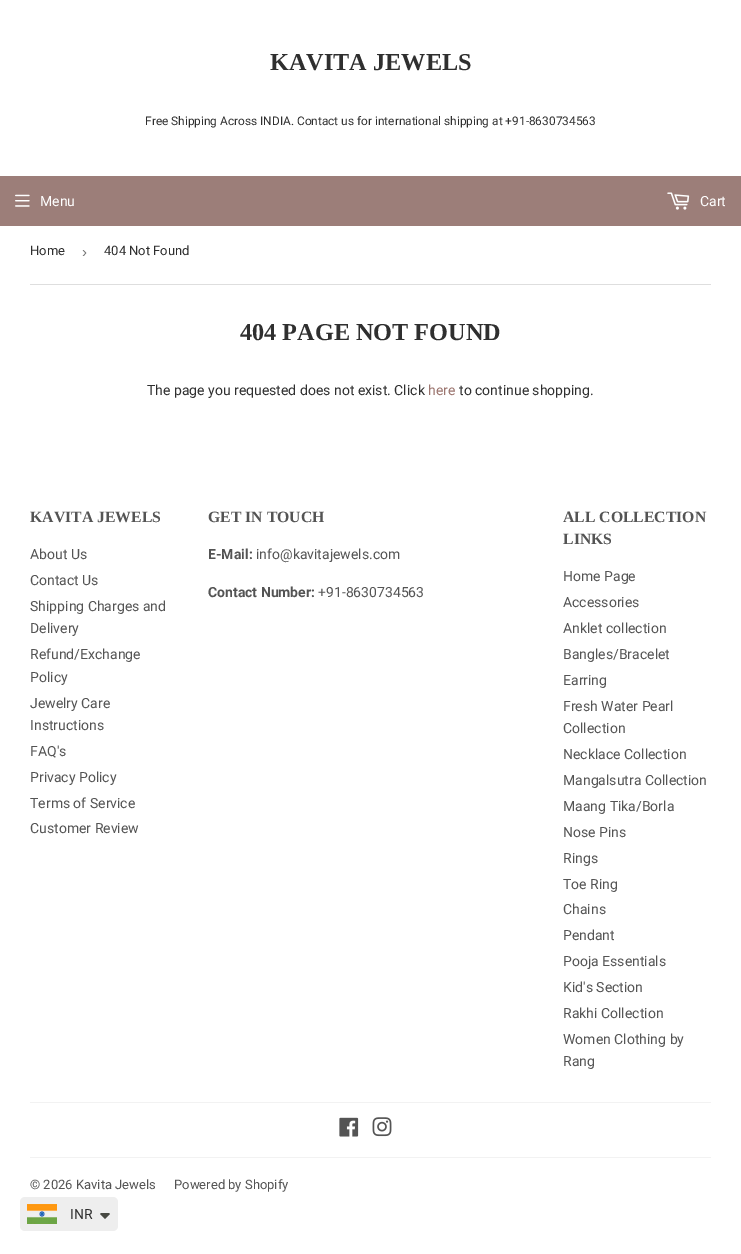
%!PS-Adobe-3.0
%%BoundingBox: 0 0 741 1254
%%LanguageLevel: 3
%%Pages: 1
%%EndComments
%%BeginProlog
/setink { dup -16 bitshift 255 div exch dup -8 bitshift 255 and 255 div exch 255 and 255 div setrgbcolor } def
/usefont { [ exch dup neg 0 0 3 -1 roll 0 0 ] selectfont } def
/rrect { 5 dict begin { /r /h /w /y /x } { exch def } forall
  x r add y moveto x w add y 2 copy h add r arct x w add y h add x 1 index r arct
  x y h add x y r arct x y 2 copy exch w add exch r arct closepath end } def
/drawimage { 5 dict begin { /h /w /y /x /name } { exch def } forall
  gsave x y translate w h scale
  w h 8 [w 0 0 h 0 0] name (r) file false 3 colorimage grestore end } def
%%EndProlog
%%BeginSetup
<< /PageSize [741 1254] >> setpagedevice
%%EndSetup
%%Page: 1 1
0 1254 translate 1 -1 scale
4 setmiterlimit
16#FFFFFF setink
0 0 741 1254 rectfill
/LiberationSerif-Bold 24.25 usefont
16#2F2F2F setink
270 70 moveto (KAVITA JEWELS) show
/Roboto-Regular 11.9 usefont
145 125 moveto (Free Shipping Across INDIA. Contact us for international shipping at +91-8630734563) show
16#9C7E79 setink
0 176 741 50 rectfill
(img1.raw) 15 194 15 13 drawimage
/Roboto-Regular 14 usefont
16#FFFFFF setink
40 206 moveto (Menu) show
(img2.raw) 667 192 23 18 drawimage
700 206 moveto (Cart) show
16#DEDEDE setink
30 284 681 1 rectfill
/Roboto-Regular 13 usefont
16#2F2F2F setink
30 255 moveto (Home) show
/LiberationSans-Regular 15 usefont
16#767676 setink
82 257 moveto (›) show
/Roboto-Regular 13 usefont
16#2F2F2F setink
104 255 moveto (404 Not Found) show
/LiberationSerif-Bold 24.25 usefont
240 340 moveto (404 PAGE NOT FOUND) show
/Roboto-Regular 14 usefont
147 395 moveto (The page you requested does not exist. Click) show
16#9C756F setink
428 395 moveto (here) show
16#2F2F2F setink
459 395 moveto (to continue shopping.) show
/LiberationSerif-Bold 15.75 usefont
16#545454 setink
30 522 moveto (KAVITA JEWELS) show
/Roboto-Regular 14 usefont
[
    [(About Us) 30 559]
    [(Contact Us) 30 585]
    [(Shipping Charges and) 30 611]
    [(Delivery) 30 633]
    [(Refund/Exchange) 30 659]
    [(Policy) 30 682]
    [(Jewelry Care) 30 708]
    [(Instructions) 30 730]
    [(FAQ's) 30 756]
    [(Privacy Policy) 30 782]
    [(Terms of Service) 30 808]
    [(Customer Review) 30 833]
] { aload pop moveto show } forall
/LiberationSerif-Bold 15.75 usefont
208 522 moveto (GET IN TOUCH) show
/Roboto-Bold 14 usefont
208 559 moveto (E-Mail:) show
/Roboto-Regular 14 usefont
256 559 moveto (info@kavitajewels.com) show
/Roboto-Bold 14 usefont
208 597 moveto (Contact Number:) show
/Roboto-Regular 14 usefont
318 597 moveto (+91-8630734563) show
/LiberationSerif-Bold 15.75 usefont
563 522 moveto (ALL COLLECTION) show
563 544 moveto (LINKS) show
/Roboto-Regular 14 usefont
[
    [(Home Page) 563 581]
    [(Accessories) 563 607]
    [(Anklet collection) 563 633]
    [(Bangles/Bracelet) 563 659]
    [(Earring) 563 685]
    [(Fresh Water Pearl) 563 711]
    [(Collection) 563 733]
    [(Necklace Collection) 563 759]
    [(Mangalsutra Collection) 563 785]
    [(Maang Tika/Borla) 563 811]
    [(Nose Pins) 563 837]
    [(Rings) 563 863]
    [(Toe Ring) 563 889]
    [(Chains) 563 914]
    [(Pendant) 563 940]
    [(Pooja Essentials) 563 966]
    [(Kid's Section) 563 992]
    [(Rakhi Collection) 563 1018]
    [(Women Clothing by) 563 1044]
    [(Rang) 563 1066]
] { aload pop moveto show } forall
16#F2F2F2 setink
30 1102 681 1 rectfill
(img3.raw) 339 1117 20 20 drawimage
(img4.raw) 372 1117 20 20 drawimage
30 1157 681 1 rectfill
/Roboto-Regular 13 usefont
16#545454 setink
30 1189 moveto (© 2026 Kavita Jewels) show
174 1189 moveto (Powered by Shopify) show
16#EEEEEE setink
20 1197 98 34 5 rrect fill
(img5.raw) 27 1204 30 20 drawimage
/Roboto-Regular 14 usefont
16#2F2F2F setink
70 1219 moveto (INR) show
16#474942 setink
102 1213 moveto 101 1213 100.5 1213.5 100 1214 curveto 105 1219 lineto 110 1214 lineto 109 1213 lineto closepath fill
showpage
%%EOF
